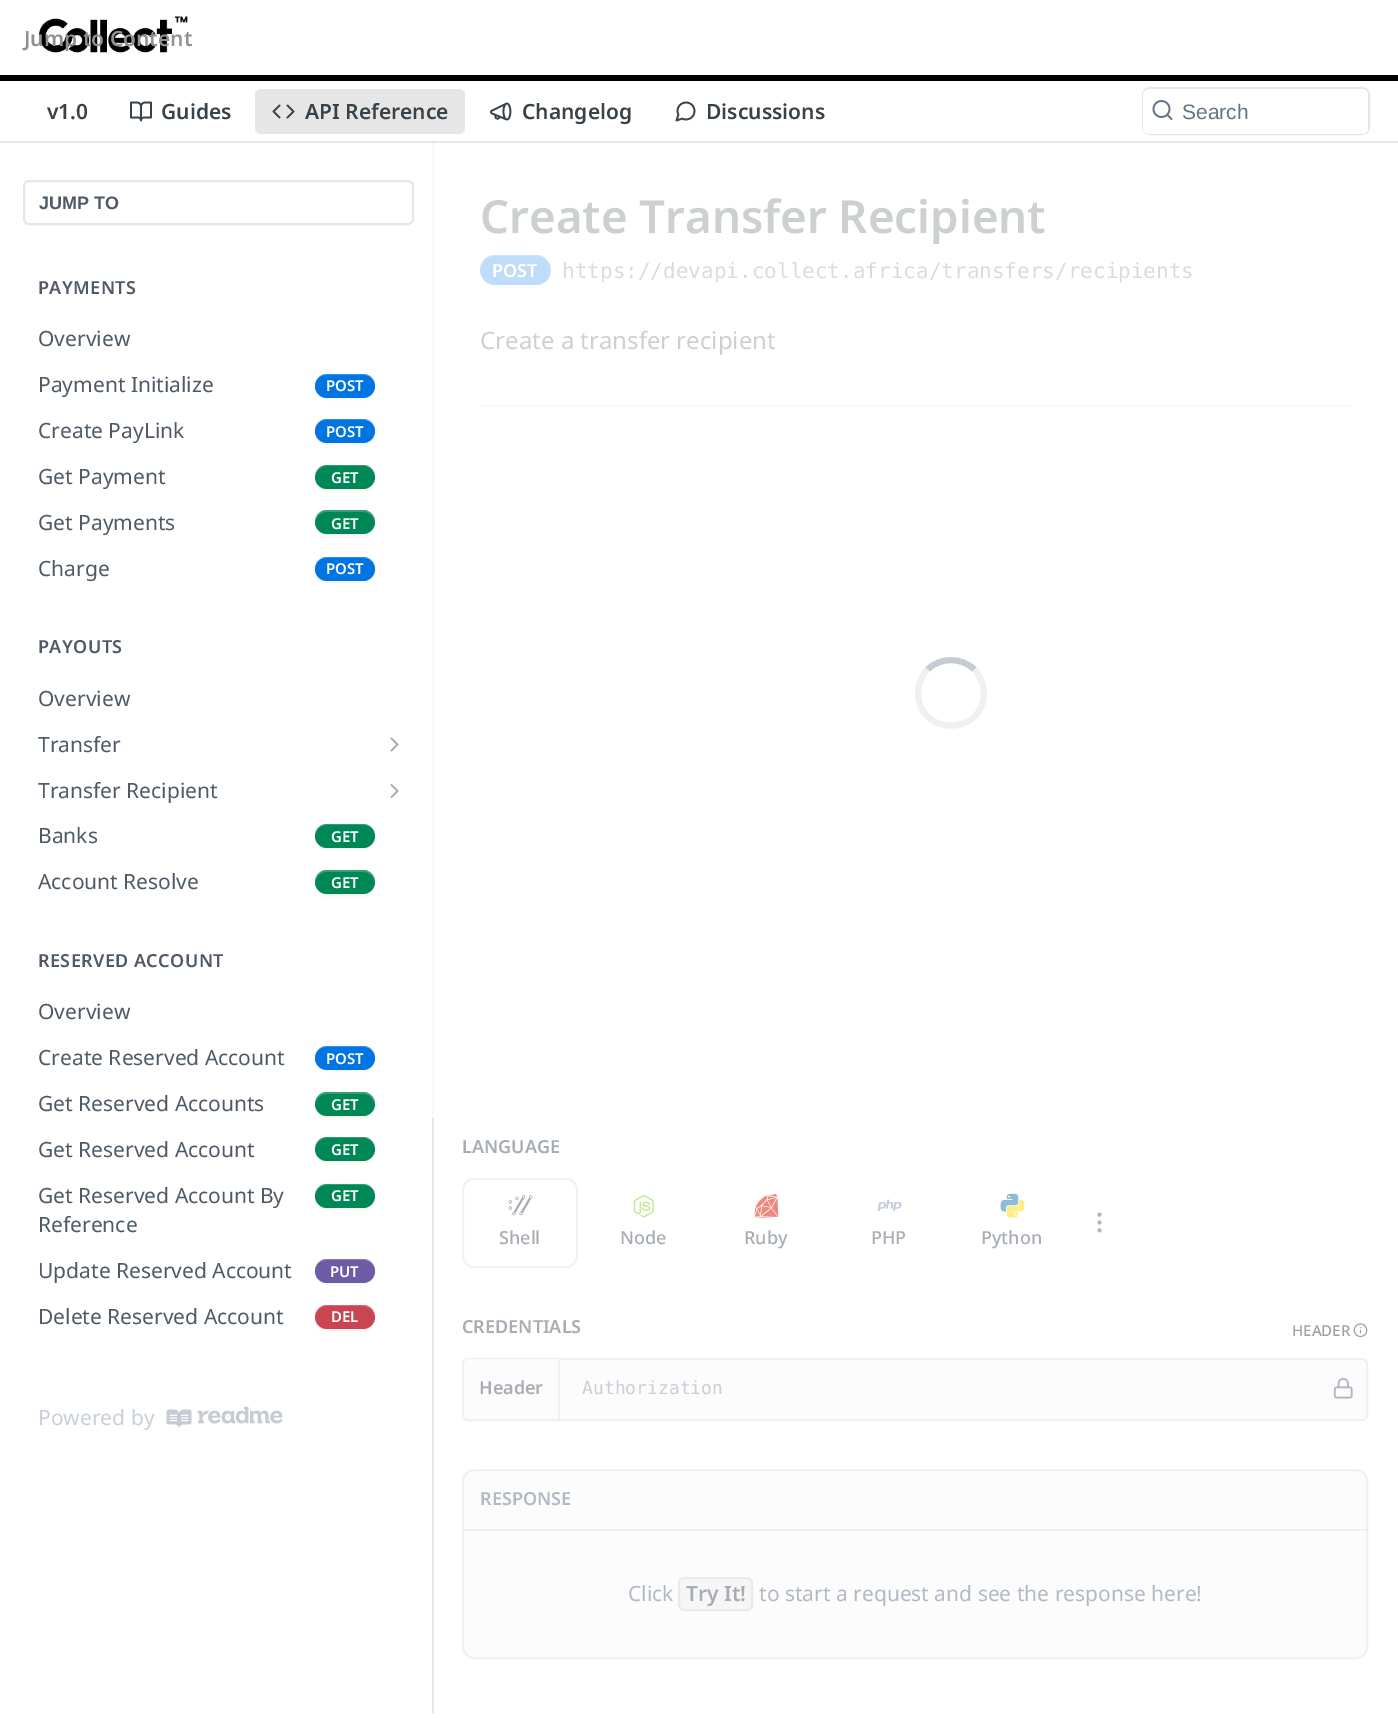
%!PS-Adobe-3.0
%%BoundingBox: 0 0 1398 1718
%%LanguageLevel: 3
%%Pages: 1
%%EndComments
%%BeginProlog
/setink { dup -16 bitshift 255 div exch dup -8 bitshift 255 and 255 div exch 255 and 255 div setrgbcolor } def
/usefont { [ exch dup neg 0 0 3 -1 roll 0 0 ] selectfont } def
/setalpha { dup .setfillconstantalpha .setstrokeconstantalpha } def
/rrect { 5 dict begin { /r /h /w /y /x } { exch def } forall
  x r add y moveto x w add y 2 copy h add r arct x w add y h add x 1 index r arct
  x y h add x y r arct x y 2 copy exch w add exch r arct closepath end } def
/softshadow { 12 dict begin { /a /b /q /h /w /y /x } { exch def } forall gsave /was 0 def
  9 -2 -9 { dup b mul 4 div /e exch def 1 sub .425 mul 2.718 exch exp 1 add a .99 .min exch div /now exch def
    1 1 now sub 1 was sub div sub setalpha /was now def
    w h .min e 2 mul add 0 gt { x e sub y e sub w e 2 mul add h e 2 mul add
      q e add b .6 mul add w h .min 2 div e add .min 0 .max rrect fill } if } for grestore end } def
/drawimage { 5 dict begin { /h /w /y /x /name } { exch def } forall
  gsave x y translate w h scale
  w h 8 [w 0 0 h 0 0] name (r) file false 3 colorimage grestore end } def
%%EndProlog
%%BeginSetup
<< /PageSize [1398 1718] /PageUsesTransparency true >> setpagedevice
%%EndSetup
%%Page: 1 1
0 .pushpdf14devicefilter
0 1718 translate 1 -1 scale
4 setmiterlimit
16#FFFFFF setink
0 0 1398 1718 rectfill
16#E6E6E6 setink
0 141 1398 2 rectfill
16#000000 setink
0 75 1398 6 rectfill
(img1.raw) 39 16 149 37 drawimage
/NotoSans-SemiBold 21 usefont
16#909090 setink
24 46 moveto (Jump to Content) show
16#384248 setink
47 119 moveto (v1.0) show
(img2.raw) 130 101 22 21 drawimage
161 119 moveto (Guides) show
16#E6E6E6 setink
255 89 210 45 6 rrect fill
(img3.raw) 272 104 23 15 drawimage
16#384248 setink
305 119 moveto (API Reference) show
(img4.raw) 490 102 22 19 drawimage
522 119 moveto (Changelog) show
(img5.raw) 675 101 21 21 drawimage
706 119 moveto (Discussions) show
16#E6E6E6 setink
2 setlinewidth
1143 88 226 46 7 rrect stroke
16#FFFFFF setink
1143 89 225 45 6 rrect fill
(img6.raw) 1152 100 21 20 drawimage
/LiberationSans-Regular 21 usefont
16#637288 setink
1182 119 moveto (Search) show
[
    [432 1118 2 595 16#E6E6E6]
    [432 141 2 977 16#F9F9F9]
    [432 141 2 2 16#E0E0E0]
] { aload pop setink rectfill } forall
16#E6E6E6 setink
24 181 389 43 5 rrect stroke
/LiberationSans-Bold 18 usefont
16#4F5A66 setink
39 209 moveto (JUMP TO) show
/NotoSans-SemiBold 18 usefont
38 294 moveto 0.4 0 (PAYMENTS) ashow
/NotoSans-Regular 21 usefont
38 346 moveto (Overview) show
38 392 moveto (Payment Initialize) show
16#000000 setink
315 375 60 24 12 1.5 0.05 softshadow
16#0074E1 setink
315 374 60 24 12 rrect fill
0.2 setalpha
16#FFFFFF setink
327 375 moveto 363 375 lineto 370 375 375 380 375 386 curveto 376 370 355 374 345 374 curveto 335 374 314 370 315 386 curveto 315 380 320 375 327 375 curveto closepath fill
/NotoSans-SemiBold 15 usefont
1 setalpha
326 391 moveto (POST) show
/NotoSans-Regular 21 usefont
16#4F5A66 setink
38 438 moveto (Create PayLink) show
16#000000 setink
315 420 60 24 12 1.5 0.05 softshadow
16#0074E1 setink
315 419 60 24 12 rrect fill
0.2 setalpha
16#FFFFFF setink
327 420 moveto 363 420 lineto 370 420 375 425 375 431 curveto 376 415 355 419 345 419 curveto 335 419 314 415 315 431 curveto 315 425 320 420 327 420 curveto closepath fill
/NotoSans-SemiBold 15 usefont
1 setalpha
326 437 moveto (POST) show
/NotoSans-Regular 21 usefont
16#4F5A66 setink
38 484 moveto (Get Payment) show
16#000000 setink
315 467 60 24 12 1.5 0.05 softshadow
16#008756 setink
315 465 60 24 12 rrect fill
0.2 setalpha
16#FFFFFF setink
327 466 moveto 363 466 lineto 370 466 375 472 375 478 curveto 376 461 355 465 345 465 curveto 335 465 314 461 315 478 curveto 315 472 320 466 327 466 curveto closepath fill
/NotoSans-SemiBold 15 usefont
1 setalpha
331 483 moveto (GET) show
/NotoSans-Regular 21 usefont
16#4F5A66 setink
38 530 moveto (Get Payments) show
16#000000 setink
315 512 60 24 12 1.5 0.05 softshadow
16#008756 setink
315 510 60 24 12 rrect fill
0.2 setalpha
16#FFFFFF setink
327 512 moveto 363 512 lineto 370 512 374 517 375 523 curveto 376 506 355 510 345 510 curveto 335 510 314 506 315 523 curveto 316 517 320 512 327 512 curveto closepath fill
/NotoSans-SemiBold 15 usefont
1 setalpha
331 529 moveto (GET) show
/NotoSans-Regular 21 usefont
16#4F5A66 setink
38 576 moveto (Charge) show
16#000000 setink
315 558 60 24 12 1.5 0.05 softshadow
16#0074E1 setink
315 557 60 24 12 rrect fill
0.2 setalpha
16#FFFFFF setink
327 558 moveto 363 558 lineto 370 558 375 563 375 569 curveto 376 553 355 557 345 557 curveto 335 557 314 553 315 569 curveto 315 563 320 558 327 558 curveto closepath fill
/NotoSans-SemiBold 15 usefont
1 setalpha
326 574 moveto (POST) show
/NotoSans-SemiBold 18 usefont
16#4F5A66 setink
38 653 moveto 0.4 0 (PAYOUTS) ashow
/NotoSans-Regular 21 usefont
38 706 moveto (Overview) show
38 752 moveto (Transfer) show
(img7.raw) 390 737 9 15 drawimage
38 798 moveto (Transfer Recipient) show
(img8.raw) 390 784 9 14 drawimage
38 843 moveto (Banks) show
16#000000 setink
315 825 60 24 12 1.5 0.05 softshadow
16#008756 setink
315 824 60 24 12 rrect fill
0.2 setalpha
16#FFFFFF setink
327 825 moveto 363 825 lineto 370 825 375 830 375 836 curveto 376 820 355 824 345 824 curveto 335 824 314 820 315 836 curveto 315 830 320 825 327 825 curveto closepath fill
/NotoSans-SemiBold 15 usefont
1 setalpha
331 842 moveto (GET) show
/NotoSans-Regular 21 usefont
16#4F5A66 setink
38 889 moveto (Account Resolve) show
16#000000 setink
315 872 60 24 12 1.5 0.05 softshadow
16#008756 setink
315 870 60 24 12 rrect fill
0.2 setalpha
16#FFFFFF setink
327 872 moveto 363 872 lineto 370 872 374 877 375 883 curveto 376 866 355 870 345 870 curveto 335 870 314 866 315 883 curveto 316 877 320 872 327 872 curveto closepath fill
/NotoSans-SemiBold 15 usefont
1 setalpha
331 888 moveto (GET) show
/NotoSans-SemiBold 18 usefont
16#4F5A66 setink
38 967 moveto 0.4 0 (RESERVED ACCOUNT) ashow
/NotoSans-Regular 21 usefont
38 1019 moveto (Overview) show
38 1065 moveto (Create Reserved Account) show
16#000000 setink
315 1047 60 24 12 1.5 0.05 softshadow
16#0074E1 setink
315 1046 60 24 12 rrect fill
0.2 setalpha
16#FFFFFF setink
327 1047 moveto 363 1047 lineto 370 1047 375 1052 375 1058 curveto 376 1042 355 1046 345 1046 curveto 335 1046 314 1042 315 1058 curveto 315 1052 320 1047 327 1047 curveto closepath fill
/NotoSans-SemiBold 15 usefont
1 setalpha
326 1064 moveto (POST) show
/NotoSans-Regular 21 usefont
16#4F5A66 setink
38 1111 moveto (Get Reserved Accounts) show
16#000000 setink
315 1094 60 24 12 1.5 0.05 softshadow
16#008756 setink
315 1092 60 24 12 rrect fill
0.2 setalpha
16#FFFFFF setink
327 1094 moveto 363 1094 lineto 370 1094 374 1099 375 1105 curveto 376 1088 355 1092 345 1092 curveto 335 1092 314 1088 315 1105 curveto 316 1099 320 1094 327 1094 curveto closepath fill
/NotoSans-SemiBold 15 usefont
1 setalpha
331 1110 moveto (GET) show
/NotoSans-Regular 21 usefont
16#4F5A66 setink
38 1157 moveto (Get Reserved Account) show
16#000000 setink
315 1139 60 24 12 1.5 0.05 softshadow
16#008756 setink
315 1137 60 24 12 rrect fill
0.2 setalpha
16#FFFFFF setink
327 1138 moveto 363 1138 lineto 370 1138 375 1144 375 1150 curveto 376 1133 355 1137 345 1137 curveto 335 1137 314 1133 315 1150 curveto 315 1144 320 1138 327 1138 curveto closepath fill
/NotoSans-SemiBold 15 usefont
1 setalpha
331 1155 moveto (GET) show
/NotoSans-Regular 21 usefont
16#4F5A66 setink
38 1203 moveto (Get Reserved Account By) show
38 1232 moveto (Reference) show
16#000000 setink
315 1185 60 24 12 1.5 0.05 softshadow
16#008756 setink
315 1184 60 24 12 rrect fill
0.2 setalpha
16#FFFFFF setink
327 1185 moveto 363 1185 lineto 370 1185 375 1190 375 1196 curveto 376 1180 355 1184 345 1184 curveto 335 1184 314 1180 315 1196 curveto 315 1190 320 1185 327 1185 curveto closepath fill
/NotoSans-SemiBold 15 usefont
1 setalpha
331 1201 moveto (GET) show
/NotoSans-Regular 21 usefont
16#4F5A66 setink
38 1278 moveto (Update Reserved Account) show
16#000000 setink
315 1260 60 24 12 1.5 0.05 softshadow
16#6D5BA6 setink
315 1259 60 24 12 rrect fill
0.2 setalpha
16#FFFFFF setink
327 1260 moveto 363 1260 lineto 370 1260 375 1265 375 1271 curveto 376 1255 355 1259 345 1259 curveto 335 1259 314 1255 315 1271 curveto 315 1265 320 1260 327 1260 curveto closepath fill
/NotoSans-SemiBold 15 usefont
1 setalpha
330 1277 moveto (PUT) show
/NotoSans-Regular 21 usefont
16#4F5A66 setink
38 1324 moveto (Delete Reserved Account) show
16#000000 setink
315 1307 60 24 12 1.5 0.05 softshadow
16#CB4452 setink
315 1305 60 24 12 rrect fill
0.2 setalpha
16#FFFFFF setink
327 1306 moveto 363 1306 lineto 370 1306 375 1312 375 1318 curveto 376 1301 355 1305 345 1305 curveto 335 1305 314 1301 315 1318 curveto 315 1312 320 1306 327 1306 curveto closepath fill
/NotoSans-SemiBold 15 usefont
1 setalpha
331 1322 moveto (DEL) show
/NotoSans-Regular 21 usefont
16#C9CFD7 setink
38 1425 moveto (Powered by) show
(img9.raw) 166 1406 117 22 drawimage
16#F9F9F9 setink
480 405 870 2 rectfill
/NotoSans-SemiBold 45.6 usefont
16#CDD0D1 setink
480 233 moveto (Create Transfer Recipient) show
16#BFDCF8 setink
480 255 71 30 15 rrect fill
0.2 setalpha
16#FFFFFF setink
495 256 moveto 536 256 lineto 544 256 550 263 550 272 curveto 550 274 550 276 549 278 curveto 550 275 551 273 551 270 curveto 551 262 544 255 536 255 curveto 495 255 lineto 487 255 480 262 480 270 curveto 480 271 lineto 481 262 487 256 495 256 curveto closepath fill
/NotoSans-SemiBold 18 usefont
1 setalpha
492 277 moveto (POST) show
/DejaVuSansMono-Regular 21 usefont
16#D8DCE1 setink
562 278 moveto (https://devapi.collect.africa/transfers/recipients) show
/NotoSans-Regular 24 usefont
16#CDD0D1 setink
480 349 moveto (Create a transfer recipient) show
16#C6CBD3 setink
6 setlinewidth
927.5 669.5 moveto 940.5 657 961.5 657 974.5 669.5 curveto stroke
16#F0F0F0 setink
974.5 669.5 moveto 982 677.5 985.5 688.5 983.5 699.5 curveto 975.5 738 918 732.5 918 693 curveto 918 684.5 921.5 676 927.5 669.5 curveto stroke
/NotoSans-SemiBold 18 usefont
16#A7ADB3 setink
462 1153 moveto (LANGUAGE) show
(img10.raw) 1097 1212 5 21 drawimage
16#F2F2F2 setink
2 setlinewidth
463 1179 114 88 11 rrect stroke
(img11.raw) 508 1195 25 21 drawimage
/NotoSans-Medium 18 usefont
16#A7ADB3 setink
499 1244 moveto (Shell) show
(img12.raw) 633 1194 21 24 drawimage
620 1244 moveto (Node) show
(img13.raw) 754 1193 25 25 drawimage
744 1244 moveto (Ruby) show
(img14.raw) 877 1199 25 13 drawimage
871 1244 moveto (PHP) show
(img15.raw) 1000 1193 19 19 drawimage
(img16.raw) 1006 1199 19 19 drawimage
981 1244 moveto (Python) show
/NotoSans-SemiBold 18 usefont
462 1333 moveto (CREDENTIALS) show
/NotoSans-Medium 15 usefont
16#9CA1A4 setink
1292 1336 moveto (HEADER) show
(img17.raw) 1353 1323 15 15 drawimage
16#FCFCFC setink
463 1359 904 61 5 rrect gsave fill grestore
16#F0F0F0 setink
stroke
16#FCFCFC setink
470 1359 moveto 560 1359 lineto 560 1419 lineto 470 1419 lineto 466.5 1419 464 1416.5 464 1413 curveto 464 1365 lineto 464 1361.5 466.5 1359 470 1359 curveto closepath fill
16#F0F0F0 setink
558 1359 2 60 rectfill
/NotoSans-SemiBold 18 usefont
16#A7ADB3 setink
479 1394 moveto (Header) show
/DejaVuSansMono-Regular 18 usefont
16#C9CFD7 setink
582 1394 moveto (Authorization) show
(img18.raw) 1333 1378 20 21 drawimage
16#FCFCFC setink
463 1470 904 188 11 rrect gsave fill grestore
16#F0F0F0 setink
stroke
0.1 setalpha
16#808080 setink
464 1529 903 2 rectfill
/NotoSans-SemiBold 18 usefont
1 setalpha
16#B1B9C4 setink
480 1505 moveto (RESPONSE) show
/NotoSans-Regular 21 usefont
628 1601 moveto (Click) show
16#F6F6F6 setink
679 1578 73 32 5 rrect gsave fill grestore
16#EAEAEA setink
stroke
/NotoSans-SemiBold 21 usefont
16#A7ADB3 setink
686 1601 moveto (Try It!) show
/NotoSans-Regular 21 usefont
16#B1B9C4 setink
759 1601 moveto (to start a request and see the response here!) show
.poppdf14devicefilter showpage
%%EOF
